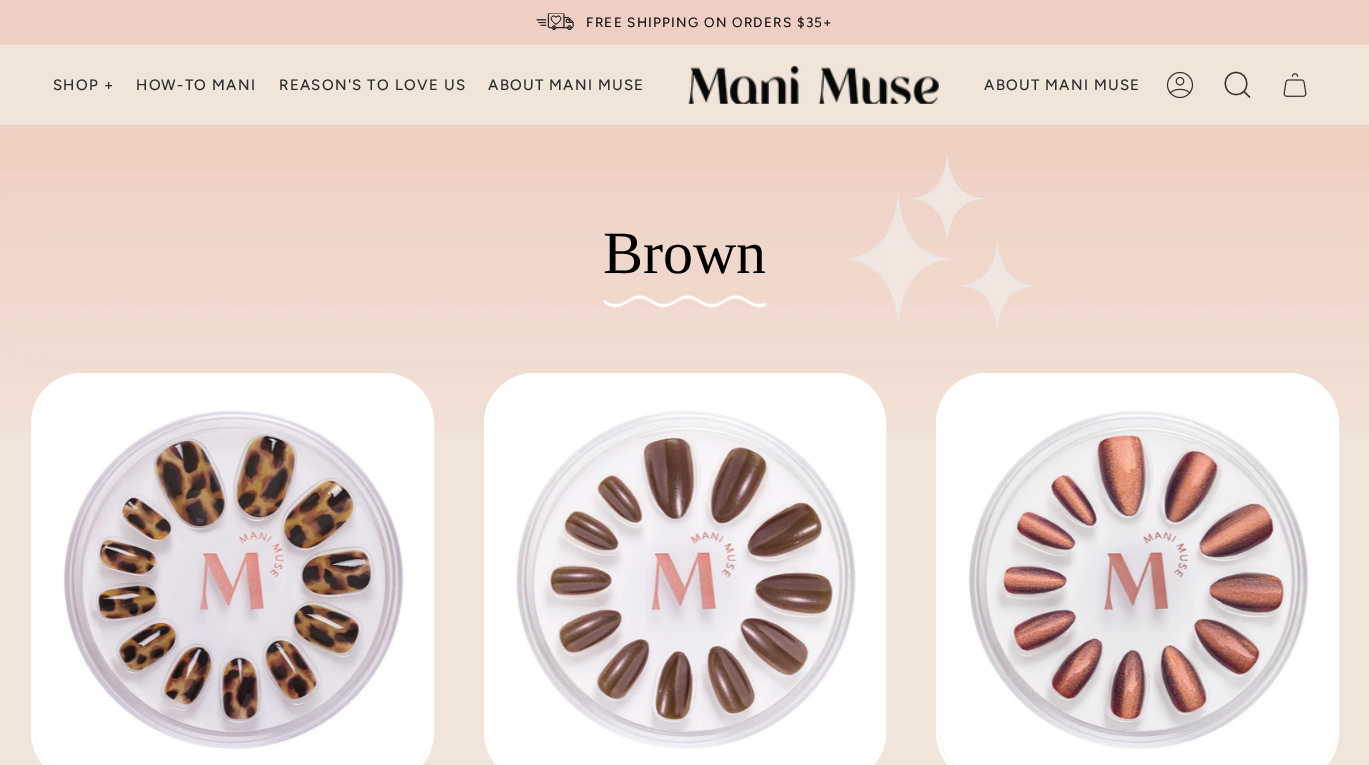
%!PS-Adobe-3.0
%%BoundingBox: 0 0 1369 765
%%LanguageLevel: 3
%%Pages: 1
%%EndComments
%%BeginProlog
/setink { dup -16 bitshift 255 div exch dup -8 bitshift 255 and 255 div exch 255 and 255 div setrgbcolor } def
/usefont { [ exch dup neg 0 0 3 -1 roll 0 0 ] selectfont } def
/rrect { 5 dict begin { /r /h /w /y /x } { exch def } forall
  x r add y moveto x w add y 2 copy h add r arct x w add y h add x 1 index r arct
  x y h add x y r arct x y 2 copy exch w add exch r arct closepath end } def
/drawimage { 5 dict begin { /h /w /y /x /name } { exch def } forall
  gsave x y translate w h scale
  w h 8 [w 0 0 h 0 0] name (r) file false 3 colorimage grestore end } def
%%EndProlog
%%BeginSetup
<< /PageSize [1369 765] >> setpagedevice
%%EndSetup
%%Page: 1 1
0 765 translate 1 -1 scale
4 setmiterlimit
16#F1E4D9 setink
0 0 1369 765 rectfill
16#EFCFC3 setink
0 0 1369 45 rectfill
(img1.raw) 536 13 38 17 drawimage
/Figtree-Regular 13.5 usefont
16#000000 setink
586 27 moveto 1.25 0 (FREE SHIPPING ON ORDERS $35+) ashow
/Figtree-Medium 15 usefont
16#2E2E2E setink
53 90 moveto 1.25 0 (SHOP +) ashow
136 90 moveto 1.25 0 (HOW-TO MANI) ashow
279 90 moveto 1.25 0 (REASON'S TO LOVE US) ashow
488 90 moveto 1.25 0 (ABOUT MANI MUSE) ashow
(img2.raw) 688 66 251 38 drawimage
984 90 moveto 1.25 0 (ABOUT MANI MUSE) ashow
(img3.raw) 1166 71 28 28 drawimage
1.2 setlinewidth
1236 72.5 moveto 1250.5 72.5 1250.5 95.5 1235.5 94.5 curveto 1221.5 94 1222 72.5 1236 72.5 curveto closepath 1244 91.5 moveto 1250 97.5 lineto stroke
(img4.raw) 1283 73 24 24 drawimage
(img5.raw) 0 125 1369 308 drawimage
(img6.raw) 603 294 164 14 drawimage
/LiberationSerif-Regular 60 usefont
16#000000 setink
603 273 moveto (Brown) show
(img7.raw) 843 155 190 174 drawimage
16#F1E4D9 setink
33 375 399 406 48 rrect gsave fill grestore
16#FFFFFF setink
4 setlinewidth
stroke
(img8.raw) 35 377 395 388 drawimage
486 375 398 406 48 rrect stroke
(img9.raw) 488 377 394 388 drawimage
16#F1E4D9 setink
938 375 399 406 48 rrect gsave fill grestore
16#FFFFFF setink
stroke
(img10.raw) 940 377 395 388 drawimage
showpage
%%EOF
